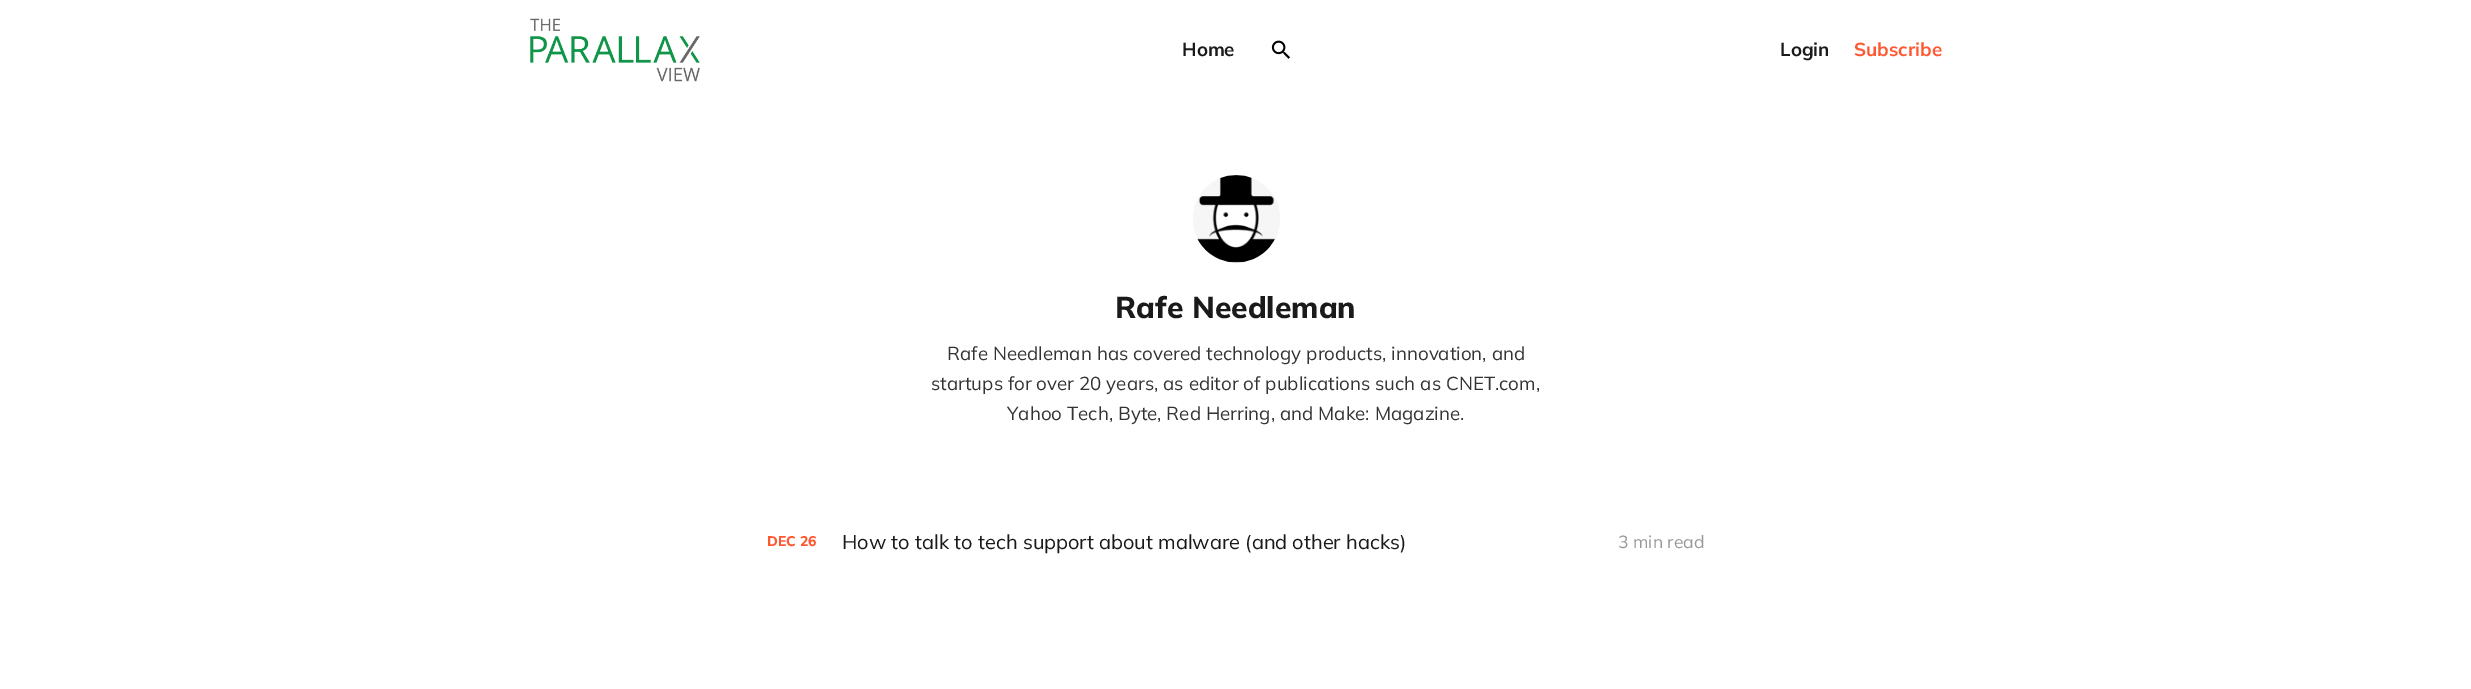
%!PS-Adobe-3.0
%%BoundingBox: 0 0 2471 689
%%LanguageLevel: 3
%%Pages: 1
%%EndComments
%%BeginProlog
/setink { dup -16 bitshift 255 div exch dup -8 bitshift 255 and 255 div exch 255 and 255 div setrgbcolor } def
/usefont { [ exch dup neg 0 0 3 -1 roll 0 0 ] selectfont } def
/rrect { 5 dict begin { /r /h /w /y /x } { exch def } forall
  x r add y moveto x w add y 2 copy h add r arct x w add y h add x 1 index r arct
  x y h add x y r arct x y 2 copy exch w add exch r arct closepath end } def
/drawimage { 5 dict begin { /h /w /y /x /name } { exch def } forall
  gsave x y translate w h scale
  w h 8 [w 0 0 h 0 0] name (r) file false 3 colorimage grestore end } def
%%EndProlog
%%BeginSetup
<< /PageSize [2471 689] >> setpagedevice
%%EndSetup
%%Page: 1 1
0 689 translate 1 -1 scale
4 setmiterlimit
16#FFFFFF setink
0 0 2471 689 rectfill
(img1.raw) 530 18 170 64 drawimage
/Mulish-Bold 18.75 usefont
16#1A1A1A setink
1182 56 moveto (Home) show
(img2.raw) 1271 40 19 19 drawimage
1780 56 moveto (Login) show
16#FF572F setink
1854 56 moveto (Subscribe) show
16#F6F6F6 setink
1193 175 87 88 43.5 rrect fill
(img3.raw) 1197 175 78 88 drawimage
/Mulish-ExtraBold 30 usefont
16#1A1A1A setink
1115 318 moveto (Rafe Needleman) show
/Mulish-Regular 18.75 usefont
16#333333 setink
[
    [(Rafe Needleman has covered technology products, innovation, and) 947 360]
    [(startups for over 20 years, as editor of publications such as CNET.com,) 931 390]
    [(Yahoo Tech, Byte, Red Herring, and Make: Magazine.) 1007 420]
] { aload pop moveto show } forall
gsave
768 510 937 64 rectclip
/Mulish-ExtraBold 14 usefont
16#FF572F setink
767 546 moveto (DEC) show
grestore
/Mulish-ExtraBold 14 usefont
16#FF572F setink
800 546 moveto (26) show
/Mulish-Regular 20 usefont
16#1A1A1A setink
842 549 moveto (How to talk to tech support about malware \(and other hacks\)) show
/Mulish-Regular 17.5 usefont
16#999999 setink
1618 548 moveto (3 min read) show
showpage
%%EOF
